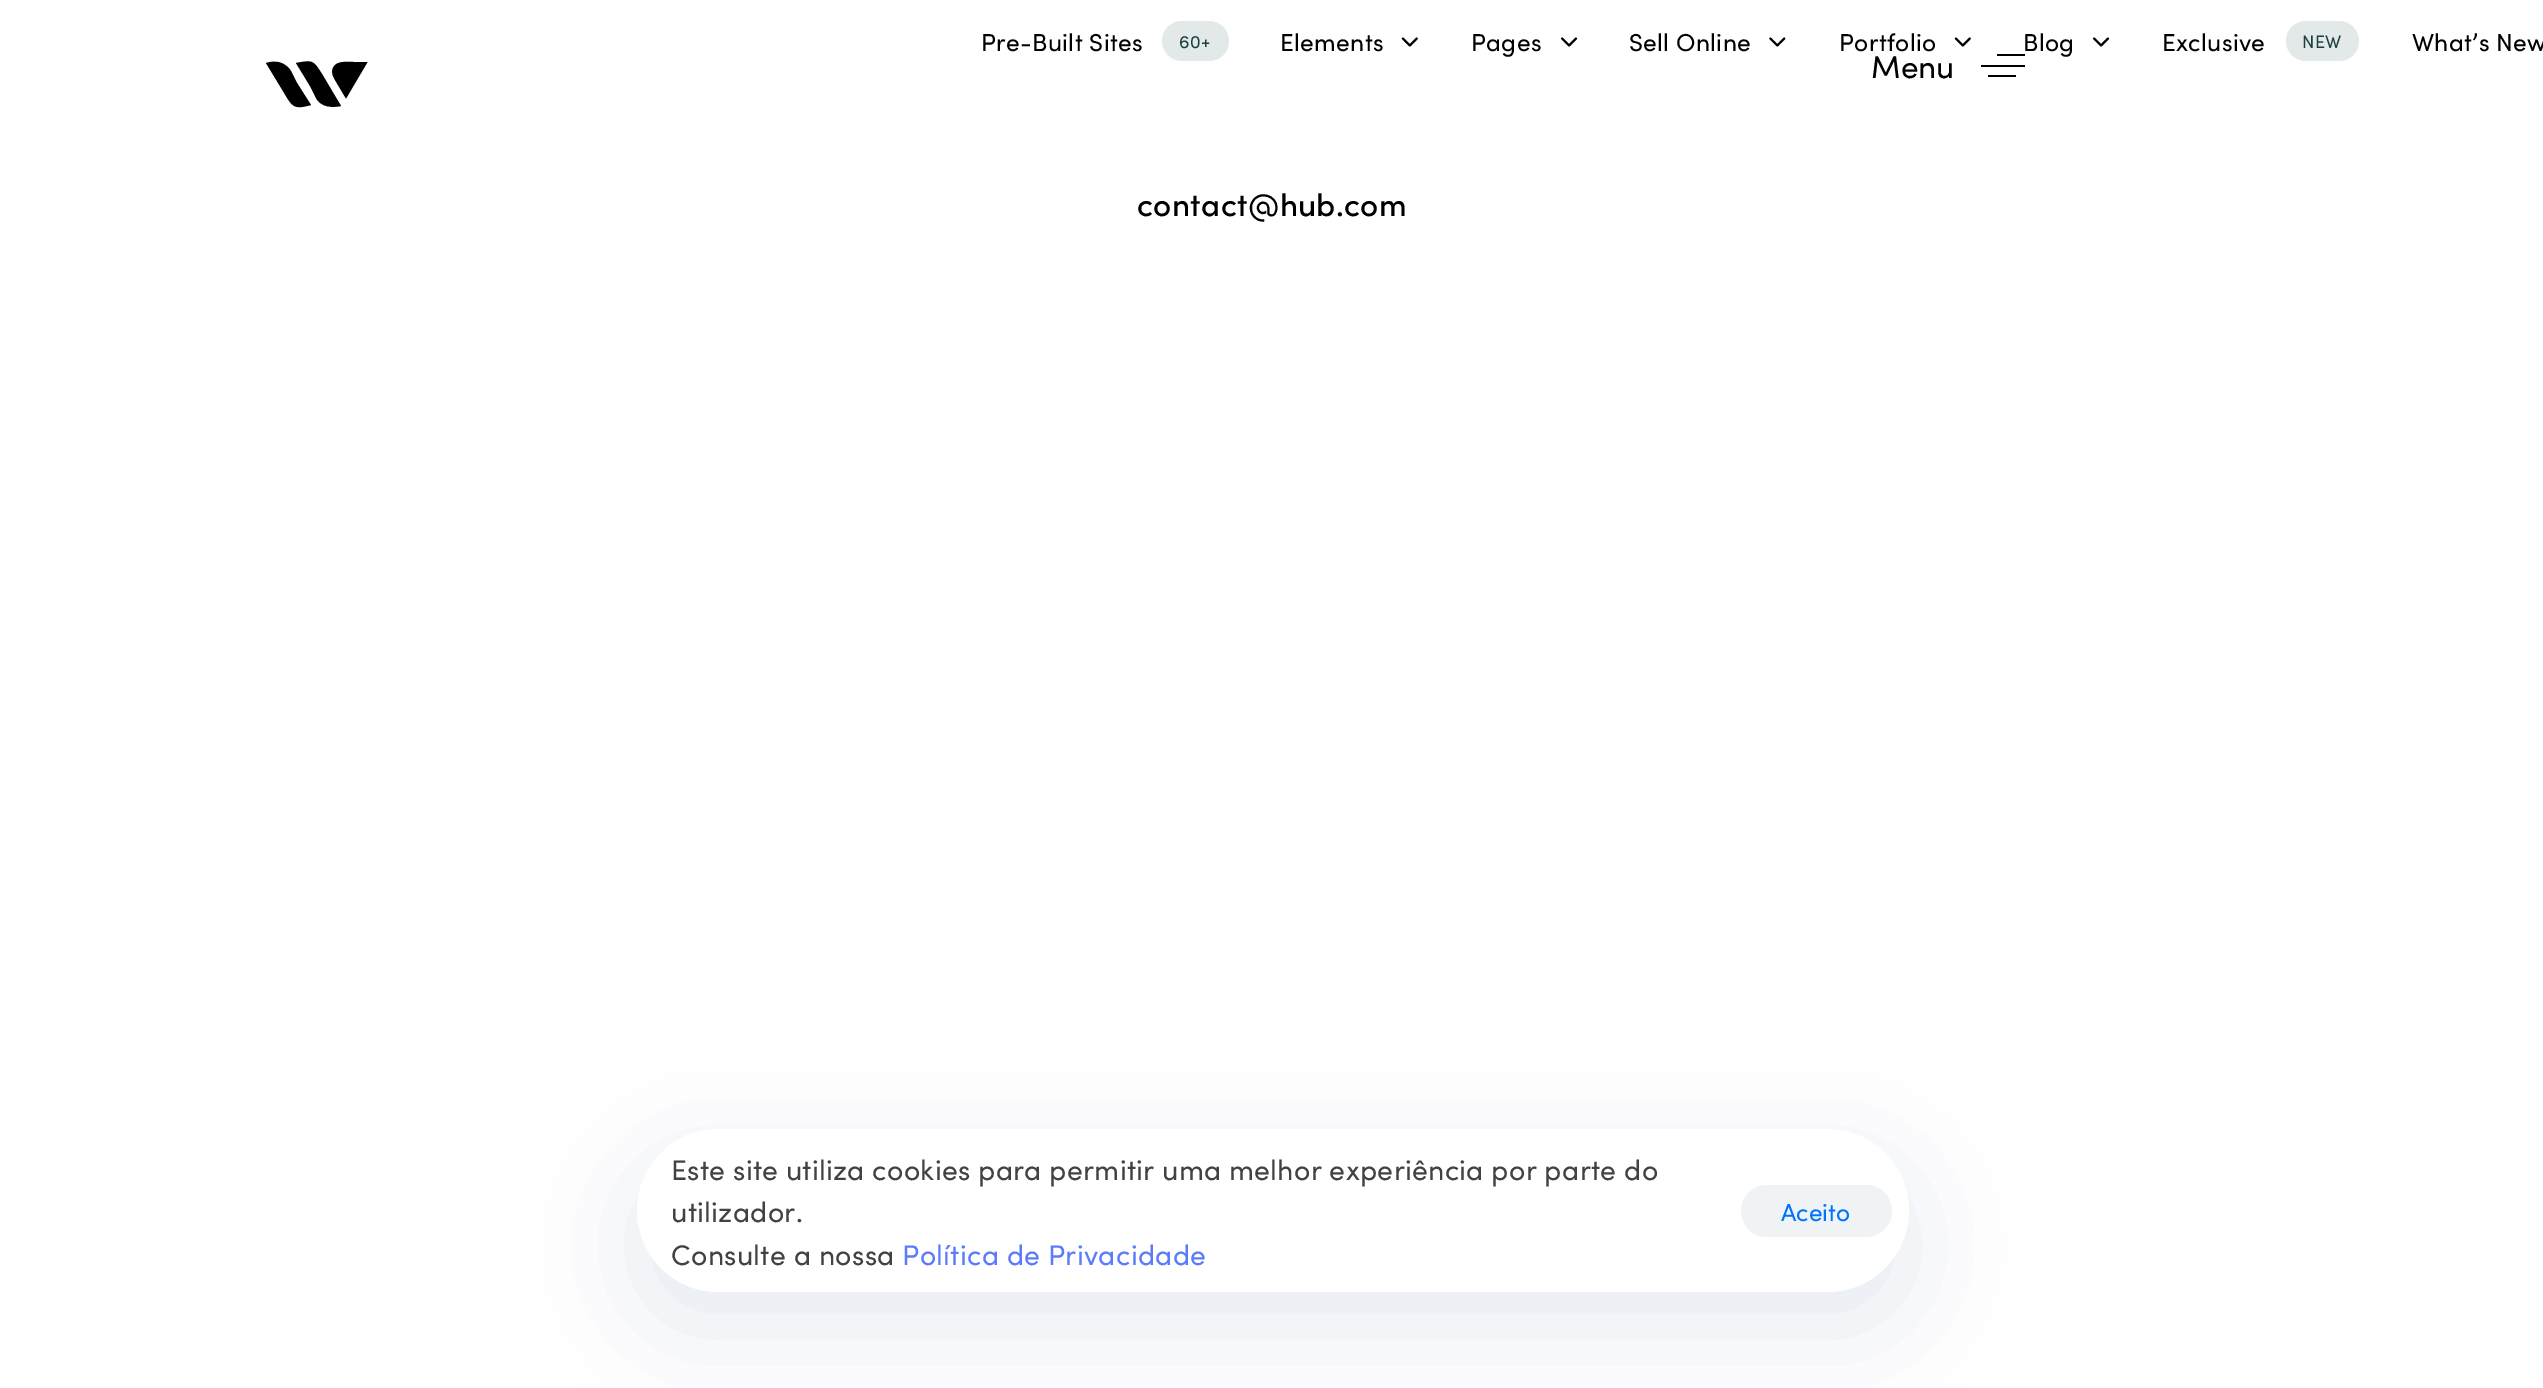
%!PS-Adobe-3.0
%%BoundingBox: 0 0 2543 1388
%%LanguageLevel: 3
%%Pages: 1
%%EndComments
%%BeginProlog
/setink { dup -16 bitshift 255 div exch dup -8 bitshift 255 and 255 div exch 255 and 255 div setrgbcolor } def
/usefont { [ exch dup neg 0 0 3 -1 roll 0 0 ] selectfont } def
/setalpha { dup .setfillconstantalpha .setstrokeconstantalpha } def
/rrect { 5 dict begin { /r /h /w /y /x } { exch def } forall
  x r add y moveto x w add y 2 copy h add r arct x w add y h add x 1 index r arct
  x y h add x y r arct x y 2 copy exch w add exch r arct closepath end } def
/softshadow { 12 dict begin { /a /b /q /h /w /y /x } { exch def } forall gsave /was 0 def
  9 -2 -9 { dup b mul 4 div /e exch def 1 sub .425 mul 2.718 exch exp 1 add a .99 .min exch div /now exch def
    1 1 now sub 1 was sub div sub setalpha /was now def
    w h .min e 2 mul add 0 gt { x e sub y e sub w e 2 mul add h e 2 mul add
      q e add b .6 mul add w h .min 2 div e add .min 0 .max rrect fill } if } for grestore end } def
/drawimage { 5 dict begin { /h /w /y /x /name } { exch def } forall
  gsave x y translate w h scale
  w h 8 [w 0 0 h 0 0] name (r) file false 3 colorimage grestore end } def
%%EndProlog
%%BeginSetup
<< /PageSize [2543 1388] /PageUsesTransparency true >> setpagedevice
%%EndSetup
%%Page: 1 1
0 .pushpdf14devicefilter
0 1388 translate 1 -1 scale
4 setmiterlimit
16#FFFFFF setink
0 0 2543 1388 rectfill
/Sofia-Regular 24.5 usefont
16#000000 setink
981 51 moveto 0.32 0 (Pre-Built Sites) ashow
0.12 setalpha
16#184341 setink
1162 21 67 40 20 rrect fill
/Sofia-Regular 18 usefont
1 setalpha
1179 48 moveto 0.32 0 (60+) ashow
/Sofia-Regular 24.5 usefont
16#000000 setink
1280 51 moveto 0.32 0 (Elements) ashow
(img1.raw) 1401 37 17 10 drawimage
1471 51 moveto 0.32 0 (Pages) ashow
(img2.raw) 1561 37 17 10 drawimage
1629 51 moveto 0.32 0 (Sell Online) ashow
(img3.raw) 1769 37 17 10 drawimage
1839 51 moveto 0.32 0 (Portfolio) ashow
(img1.raw) 1954 37 17 10 drawimage
2023 51 moveto 0.32 0 (Blog) ashow
(img2.raw) 2093 37 17 10 drawimage
2162 51 moveto 0.32 0 (Exclusive) ashow
0.12 setalpha
16#184341 setink
2286 21 73 40 20 rrect fill
/Sofia-Regular 18 usefont
1 setalpha
2302 48 moveto 0.32 0 (NEW) ashow
/Sofia-Regular 24.5 usefont
16#000000 setink
2412 51 moveto 0.32 0 (What’s New) ashow
266 63 moveto 276 60 285 62 291 71 curveto 297 83 lineto 311 105 lineto 296 109 293 108 286 96 curveto closepath fill
341 106 moveto 331 108 321 107 316 98 curveto 310 86 lineto 296 63 lineto 313 60 313 60 322 74 curveto closepath fill
346 98.5 moveto 336.5 82.5 lineto 335 80 333.5 77.5 332.5 74.5 curveto 332 72 332 69 333.5 67 curveto 337 60.5 347.5 62 354 62 curveto 367.5 62 lineto closepath fill
/Sofia-Regular 31.5 usefont
1871 78 moveto (Menu) show
[
    [1997 54 28 2 16#000000]
    [1981 65 44 2 16#000000]
    [1988 75 28 2 16#000000]
] { aload pop setink rectfill } forall
/Sofia-Medium 31.5 usefont
1137 216 moveto 0.32 0 (contact@hub.com) ashow
16#5C6B95 setink
637 1164 1272 163 81.5 52.5 0.15 softshadow
16#FFFFFF setink
637 1129 1272 163 81.5 rrect fill
/Sofia-Regular 28.35 usefont
16#424242 setink
671 1180 moveto 0.32 0 (Este site utiliza cookies para permitir uma melhor experiência por parte do) ashow
671 1222 moveto 0.32 0 (utilizador.) ashow
671 1265 moveto 0.32 0 (Consulte a nossa) ashow
16#5B7BFB setink
902 1265 moveto 0.32 0 (Política de Privacidade) ashow
16#EFF3F5 setink
1741 1185 151 52 26 rrect fill
/Sofia-Regular 24.5 usefont
16#0073FB setink
1781 1221 moveto (Aceito) show
.poppdf14devicefilter showpage
%%EOF
